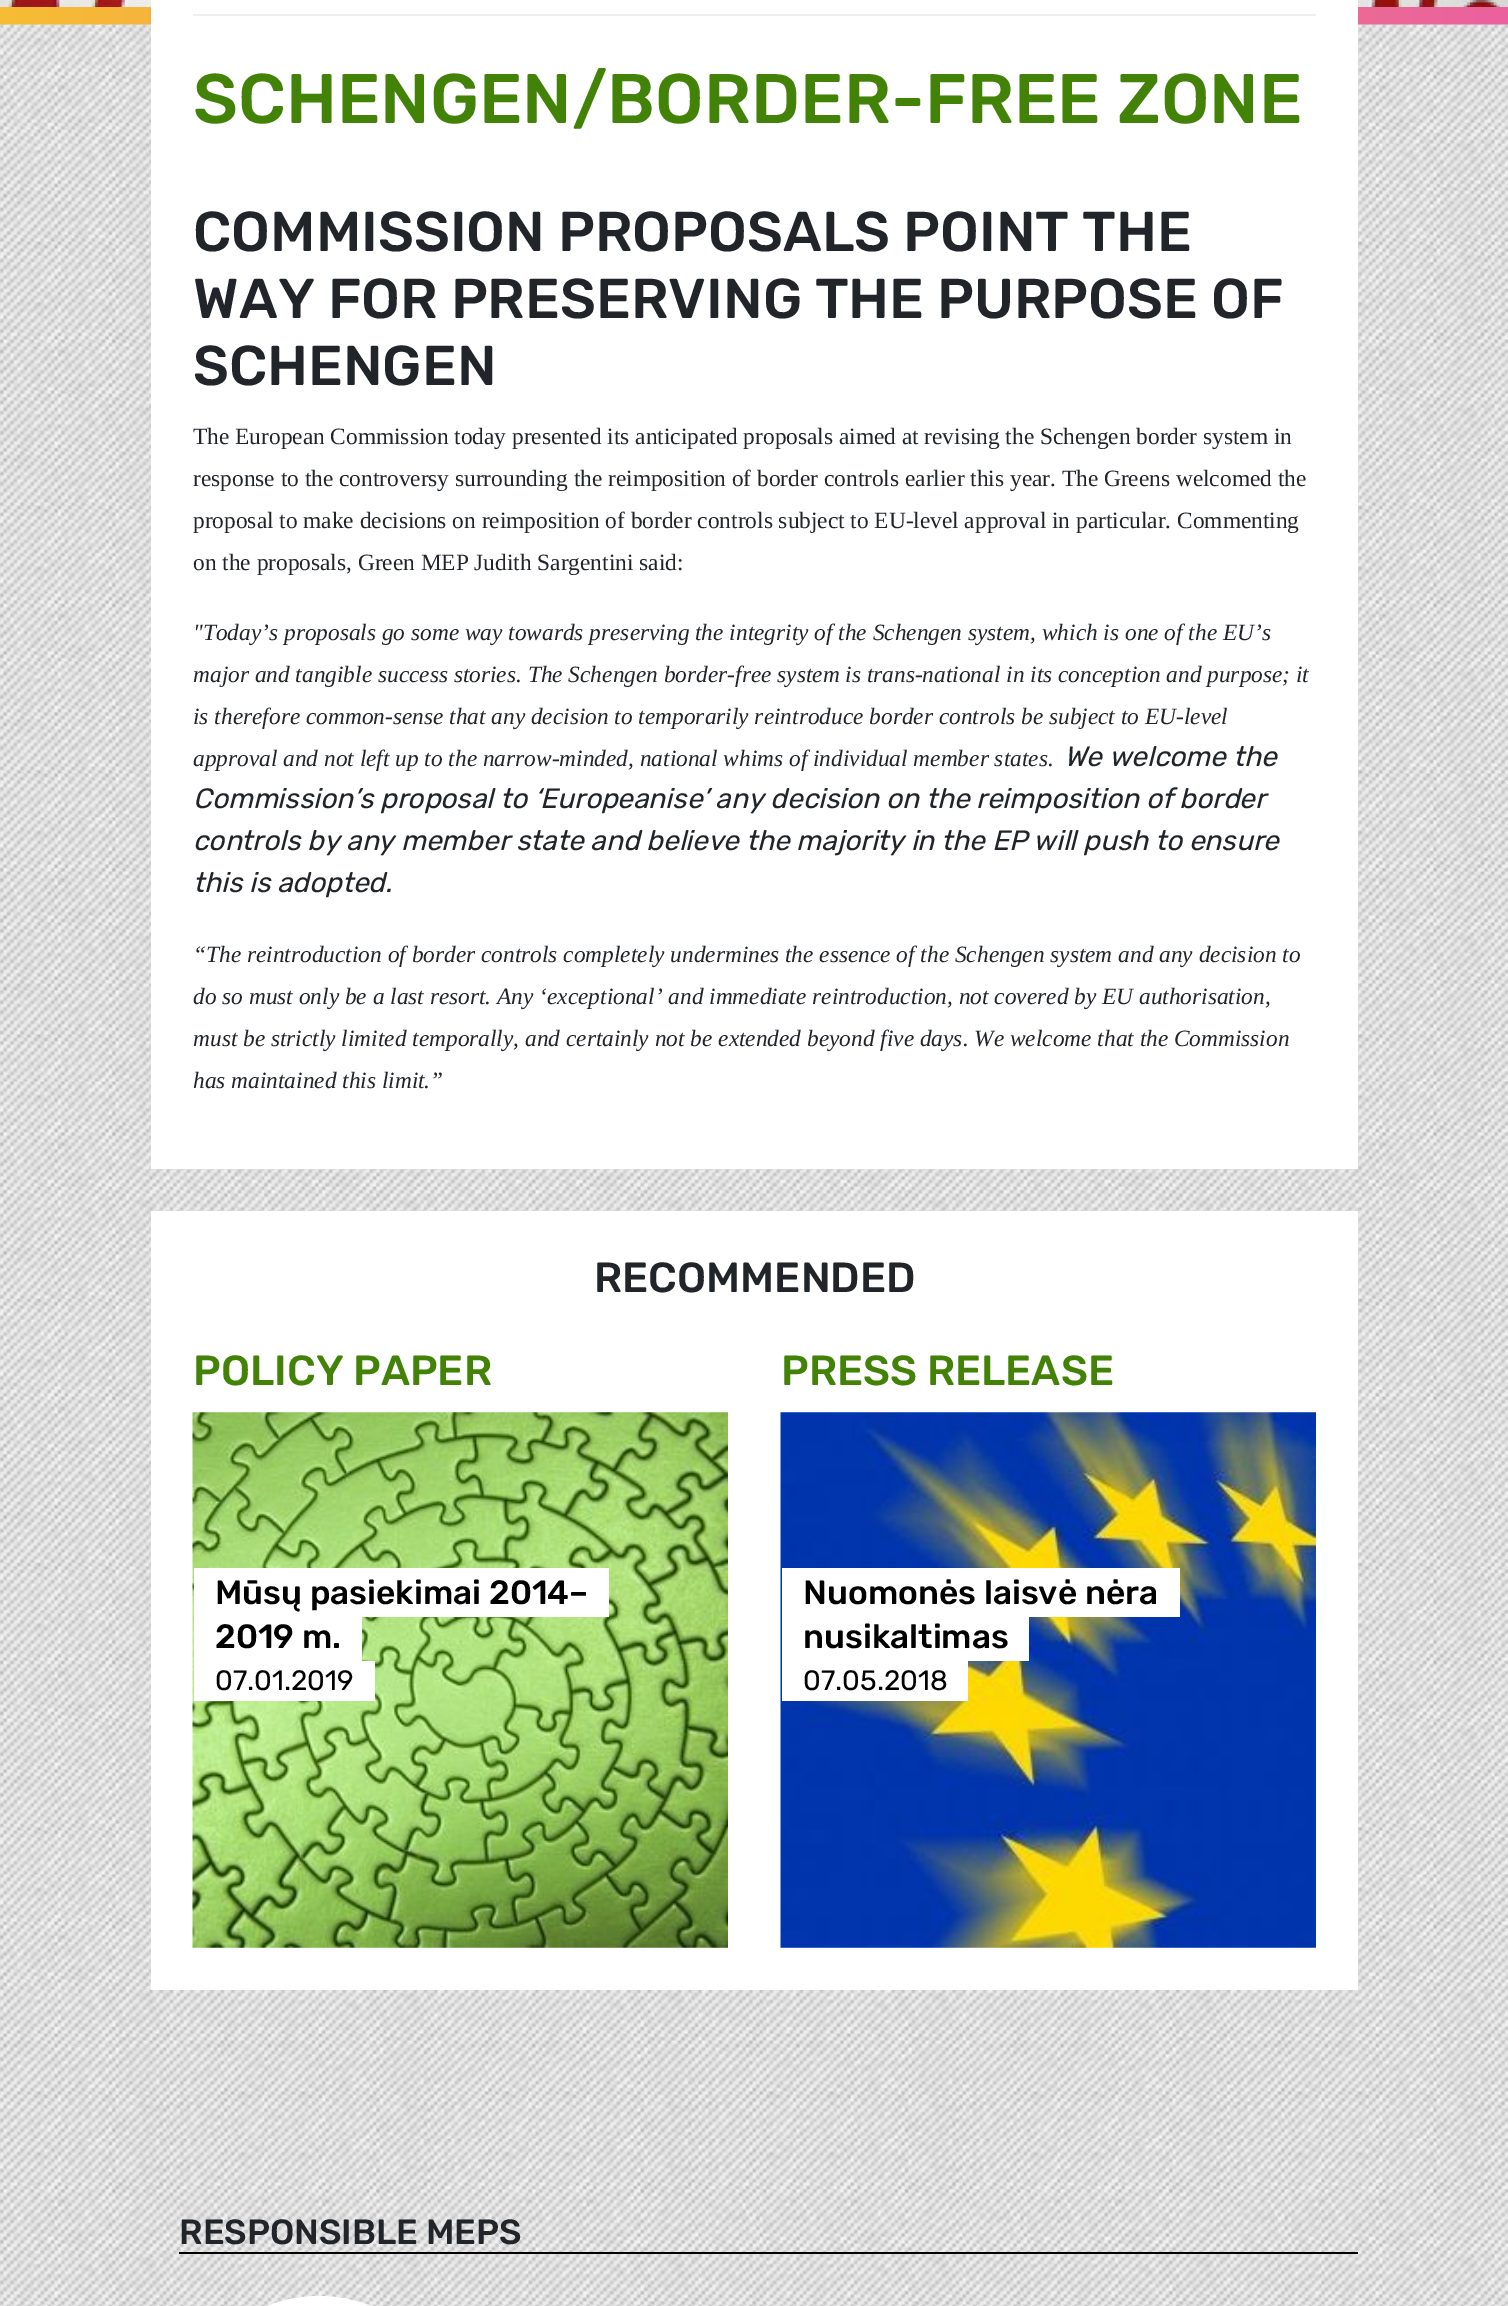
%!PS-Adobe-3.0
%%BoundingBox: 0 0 1508 2306
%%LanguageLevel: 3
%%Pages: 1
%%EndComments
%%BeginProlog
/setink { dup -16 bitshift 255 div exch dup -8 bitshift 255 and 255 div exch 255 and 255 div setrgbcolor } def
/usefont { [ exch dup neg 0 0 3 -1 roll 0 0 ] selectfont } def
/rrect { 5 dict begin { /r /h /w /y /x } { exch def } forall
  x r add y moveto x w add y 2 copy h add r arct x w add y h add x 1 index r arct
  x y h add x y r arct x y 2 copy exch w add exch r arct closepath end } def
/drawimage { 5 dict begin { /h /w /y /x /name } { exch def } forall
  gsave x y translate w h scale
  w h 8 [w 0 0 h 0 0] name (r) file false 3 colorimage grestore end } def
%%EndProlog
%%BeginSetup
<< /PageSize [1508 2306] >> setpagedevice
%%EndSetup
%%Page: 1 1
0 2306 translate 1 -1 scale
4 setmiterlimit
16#FFFFFF setink
0 0 1508 2306 rectfill
(img1.raw) 0 0 1508 7 drawimage
gsave 0 7 moveto 1508 7 lineto 1508 25 lineto 0 25 lineto closepath clip newpath
<< /ShadingType 2 /ColorSpace /DeviceRGB /Coords [0 16 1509 16] /Extend [true true] /Function << /FunctionType 2 /Domain [0 1] /C0 [0.969 0.741 0.2] /C1 [0.918 0.38 0.624] /N 1 >> >> shfill grestore
(img2.raw) 0 24 1508 2282 drawimage
151 0 1207 1169 rectfill
16#EFEFEF setink
193 14 1123 2 rectfill
/Rubik-Medium 70 usefont
16#428207 setink
193 123 moveto (SCHENGEN/BORDER-FREE ZONE) show
/Rubik-Medium 56 usefont
16#212529 setink
[
    [(COMMISSION PROPOSALS POINT THE) 193 251]
    [(WAY FOR PRESERVING THE PURPOSE OF) 193 318]
    [(SCHENGEN) 193 385]
] { aload pop moveto show } forall
/LiberationSerif-Regular 23.35 usefont
[
    [(The European Commission today presented its anticipated proposals aimed at revising the Schengen border system in) 193 444]
    [(response to the controversy surrounding the reimposition of border controls earlier this year. The Greens welcomed the) 193 486]
    [(proposal to make decisions on reimposition of border controls subject to EU-level approval in particular. Commenting) 193 528]
    [(on the proposals, Green MEP Judith Sargentini said:) 193 570]
] { aload pop moveto show } forall
/LiberationSerif-Italic 23.35 usefont
[
    [("Today’s proposals go some way towards preserving the integrity of the Schengen system, which is one of the EU’s) 193 640]
    [(major and tangible success stories. The Schengen border-free system is trans-national in its conception and purpose; it) 193 682]
    [(is therefore common-sense that any decision to temporarily reintroduce border controls be subject to EU-level) 193 724]
    [(approval and not left up to the narrow-minded, national whims of individual member states.) 193 766]
] { aload pop moveto show } forall
/Rubik-Italic 28 usefont
[
    [(We welcome the) 1064 766]
    [(Commission’s proposal to ‘Europeanise’ any decision on the reimposition of border) 193 808]
    [(controls by any member state and believe the majority in the EP will push to ensure) 193 850]
    [(this is adopted.) 193 892]
] { aload pop moveto show } forall
/LiberationSerif-Italic 23.35 usefont
[
    [(“The reintroduction of border controls completely undermines the essence of the Schengen system and any decision to) 193 962]
    [(do so must only be a last resort. Any ‘exceptional’ and immediate reintroduction, not covered by EU authorisation,) 193 1004]
    [(must be strictly limited temporally, and certainly not be extended beyond five days. We welcome that the Commission) 193 1046]
    [(has maintained this limit.”) 193 1088]
] { aload pop moveto show } forall
16#FFFFFF setink
151 1211 1207 779 rectfill
/Rubik-Medium 42 usefont
16#212529 setink
594 1292 moveto (RECOMMENDED) show
16#428207 setink
193 1385 moveto (POLICY PAPER) show
(img3.raw) 192 1412 536 536 drawimage
16#FFFFFF setink
215 1568 394 49 rectfill
/Rubik-Medium 33.6 usefont
16#000000 setink
215 1604 moveto (Mūsų pasiekimai 2014–) show
16#FFFFFF setink
194 1568 21 44 rectfill
215 1617 126 44 rectfill
16#000000 setink
215 1648 moveto (2019 m.) show
16#FFFFFF setink
194 1612 moveto 194 1661 lineto 320 1661 lineto 215 1661 lineto 215 1612 lineto closepath fill
236 1661 moveto 362 1661 lineto 362 1612 lineto 341 1612 lineto 341 1661 lineto closepath fill
215 1661 160 40 rectfill
/Rubik-Regular 28 usefont
16#000000 setink
215 1690 moveto (07.01.2019) show
16#FFFFFF setink
194 1661 21 40 rectfill
/Rubik-Medium 42 usefont
16#428207 setink
781 1385 moveto (PRESS RELEASE) show
(img4.raw) 780 1412 536 536 drawimage
16#FFFFFF setink
803 1568 377 49 rectfill
/Rubik-Medium 33.6 usefont
16#000000 setink
803 1604 moveto (Nuomonės laisvė nėra) show
16#FFFFFF setink
782 1568 21 44 rectfill
803 1617 205 44 rectfill
16#000000 setink
803 1648 moveto (nusikaltimas) show
16#FFFFFF setink
782 1612 moveto 782 1661 lineto 987 1661 lineto 803 1661 lineto 803 1612 lineto closepath fill
824 1661 moveto 1029 1661 lineto 1029 1612 lineto 1008 1612 lineto 1008 1661 lineto closepath fill
803 1661 165 40 rectfill
/Rubik-Regular 28 usefont
16#000000 setink
803 1690 moveto (07.05.2018) show
16#FFFFFF setink
782 1661 21 40 rectfill
16#000000 setink
179 2252 1179 2 rectfill
/Rubik-Medium 35 usefont
16#212529 setink
179 2244 moveto (RESPONSIBLE MEPS) show
16#FFFFFF setink
14 setlinewidth
186 2303 266 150 133 rrect stroke
showpage
%%EOF
